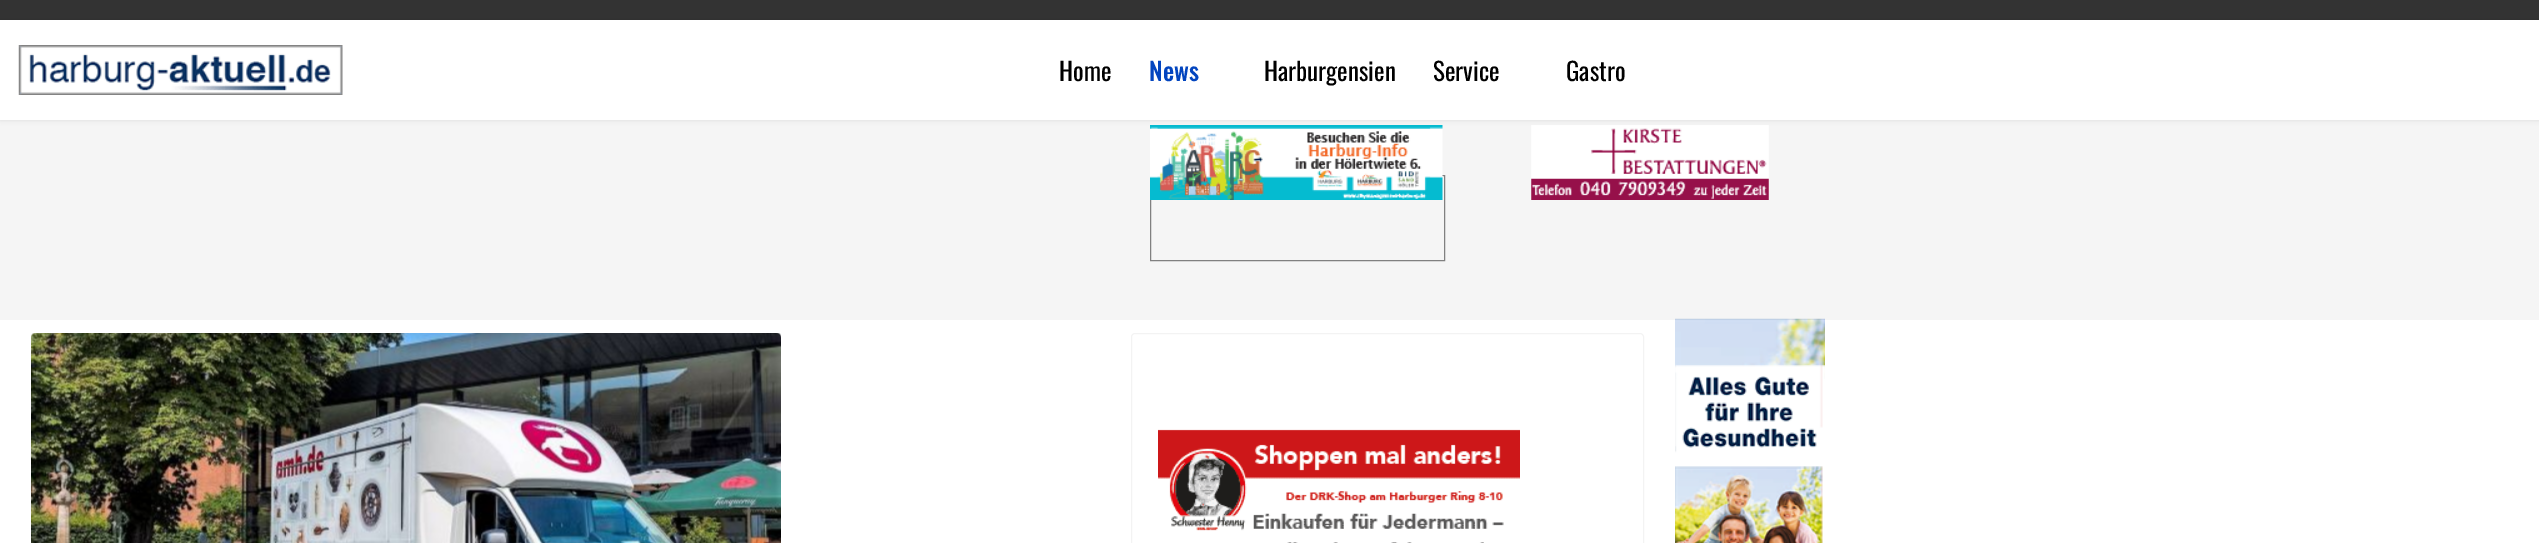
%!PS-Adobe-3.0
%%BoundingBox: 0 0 2539 543
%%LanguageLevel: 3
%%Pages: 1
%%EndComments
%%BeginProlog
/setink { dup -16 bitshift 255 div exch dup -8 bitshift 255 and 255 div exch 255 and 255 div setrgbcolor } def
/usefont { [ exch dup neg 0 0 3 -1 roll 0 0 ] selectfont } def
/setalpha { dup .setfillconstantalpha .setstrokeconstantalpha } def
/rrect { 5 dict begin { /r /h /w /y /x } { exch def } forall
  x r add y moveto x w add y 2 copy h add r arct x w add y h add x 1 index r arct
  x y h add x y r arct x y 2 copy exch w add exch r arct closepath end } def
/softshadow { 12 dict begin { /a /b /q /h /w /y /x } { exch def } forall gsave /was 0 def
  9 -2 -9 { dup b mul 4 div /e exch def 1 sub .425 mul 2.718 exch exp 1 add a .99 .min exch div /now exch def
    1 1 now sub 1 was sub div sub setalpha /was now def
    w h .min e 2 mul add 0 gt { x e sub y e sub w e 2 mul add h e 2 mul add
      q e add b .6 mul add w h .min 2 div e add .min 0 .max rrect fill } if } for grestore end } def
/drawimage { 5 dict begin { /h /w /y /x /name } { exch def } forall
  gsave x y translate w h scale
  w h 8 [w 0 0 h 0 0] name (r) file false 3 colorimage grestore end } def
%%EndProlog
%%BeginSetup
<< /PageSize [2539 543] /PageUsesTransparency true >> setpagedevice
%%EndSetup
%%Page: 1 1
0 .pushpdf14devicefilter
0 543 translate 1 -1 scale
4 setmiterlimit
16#FFFFFF setink
0 0 2539 543 rectfill
16#333333 setink
0 0 2539 20 rectfill
16#F5F5F5 setink
0 120 2539 200 rectfill
16#808080 setink
1150.5 175.5 294 85 rectstroke
(img4.raw) 1150 125 293 75 drawimage
(img5.raw) 1531 125 238 75 drawimage
gsave
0 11 moveto 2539 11 lineto 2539 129 lineto 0 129 lineto closepath 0 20 moveto 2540 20 lineto 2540 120 lineto 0 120 lineto closepath eoclip newpath
16#000000 setink
0 20 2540 100 0 2.5 0.1 softshadow
grestore
(img1.raw) 18 45 325 50 drawimage
/Oswald-Regular 25 usefont
16#000000 setink
1059 81 moveto (Home) show
/Oswald-Medium 25 usefont
16#0345BF setink
1149 81 moveto (News) show
/Oswald-Regular 25 usefont
16#000000 setink
[
    [(Harburgensien) 1264 81]
    [(Service) 1433 81]
    [(Gastro) 1566 81]
] { aload pop moveto show } forall
(img2.raw) 31 333 750 210 drawimage
16#F3F3F3 setink
1131.5 333.5 512 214 3.5 rrect stroke
(img3.raw) 1158 429 362 114 drawimage
(img6.raw) 1675 318 150 225 drawimage
.poppdf14devicefilter showpage
%%EOF
